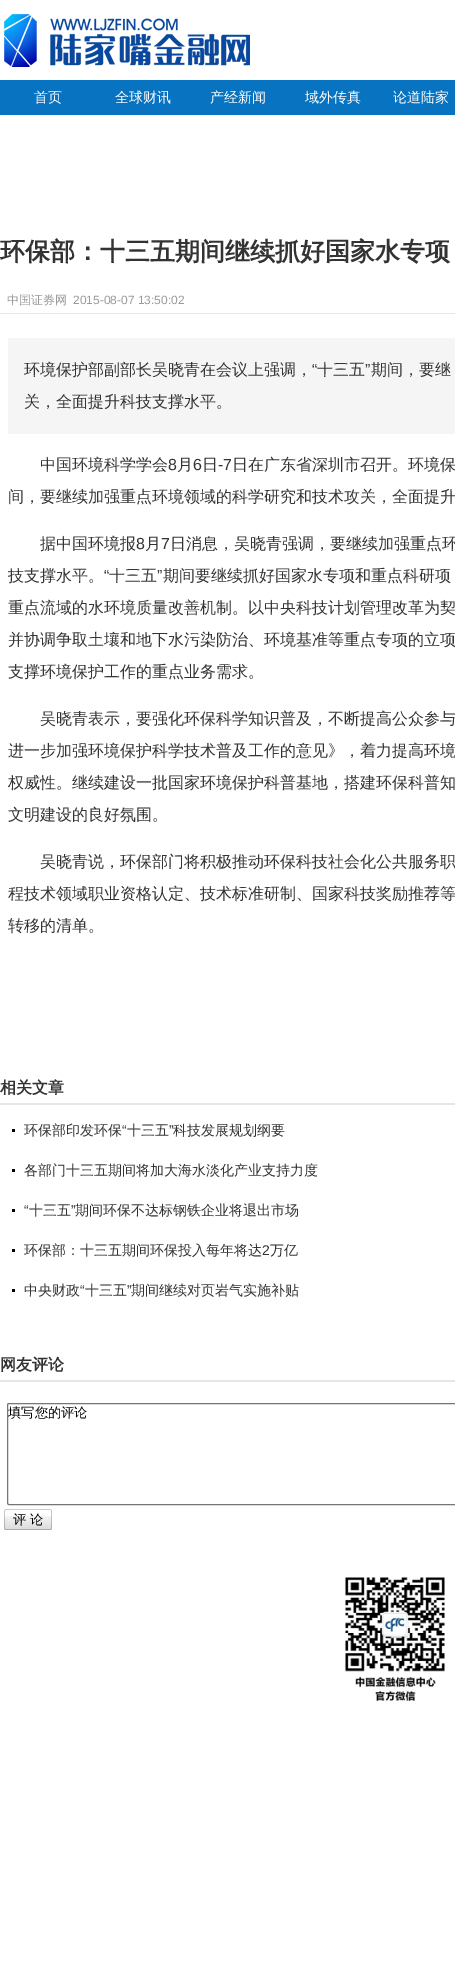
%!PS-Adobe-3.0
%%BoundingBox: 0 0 455 1987
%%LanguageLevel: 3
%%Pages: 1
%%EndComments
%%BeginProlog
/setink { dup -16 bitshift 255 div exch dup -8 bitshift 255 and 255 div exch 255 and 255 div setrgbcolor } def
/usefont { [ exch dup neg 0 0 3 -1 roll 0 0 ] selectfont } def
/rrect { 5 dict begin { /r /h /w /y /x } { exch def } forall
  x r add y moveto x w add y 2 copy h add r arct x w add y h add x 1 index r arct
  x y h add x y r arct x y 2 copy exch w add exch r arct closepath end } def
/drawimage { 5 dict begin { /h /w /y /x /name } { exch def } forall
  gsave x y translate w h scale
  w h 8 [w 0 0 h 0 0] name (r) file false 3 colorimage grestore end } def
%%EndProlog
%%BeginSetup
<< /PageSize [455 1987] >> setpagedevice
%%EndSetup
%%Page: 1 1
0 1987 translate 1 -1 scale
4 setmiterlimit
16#FFFFFF setink
0 0 455 1987 rectfill
(img1.raw) 4 14 246 53 drawimage
16#0873C0 setink
0 80 455 35 rectfill
/WenQuanYiZenHei-Medium 14 usefont
16#FFFFFF setink
[
    [(首页) 34 102]
    [(全球财讯) 115 102]
    [(产经新闻) 210 102]
    [(域外传真) 305 102]
    [(论道陆家) 393 102]
] { aload pop moveto show } forall
/WenQuanYiZenHei-Bold 25 usefont
16#333333 setink
0 260 moveto (环保部：十三五期间继续抓好国家水专项) show
/WenQuanYiZenHei-Medium 12 usefont
16#9A9A9A setink
7 304 moveto (中国证券网) show
/LiberationSans-Regular 12 usefont
73 304 moveto (2015-08-07 13:50:02) show
16#E6E6E6 setink
0 313 455 1 rectfill
16#F5F5F5 setink
8 338 447 96 rectfill
/WenQuanYiZenHei-Medium 16 usefont
16#333333 setink
24 375 moveto (环境保护部副部长吴晓青在会议上强调，) show
/LiberationSans-Regular 16 usefont
312 375 moveto (“) show
/WenQuanYiZenHei-Medium 16 usefont
317 375 moveto (十三五) show
/LiberationSans-Regular 16 usefont
365 375 moveto (”) show
/WenQuanYiZenHei-Medium 16 usefont
[
    [(期间，要继) 371 375]
    [(关，全面提升科技支撑水平。) 24 407]
    [(中国环境科学学会) 40 470]
] { aload pop moveto show } forall
/LiberationSans-Regular 16 usefont
168 470 moveto (8) show
/WenQuanYiZenHei-Medium 16 usefont
177 470 moveto (月) show
/LiberationSans-Regular 16 usefont
193 470 moveto (6) show
/WenQuanYiZenHei-Medium 16 usefont
202 470 moveto (日) show
/LiberationSans-Regular 16 usefont
218 470 moveto (-7) show
/WenQuanYiZenHei-Medium 16 usefont
[
    [(日在广东省深圳市召开。环境保) 232 470]
    [(间，要继续加强重点环境领域的科学研究和技术攻关，全面提升) 8 502]
    [(据中国环境报) 40 549]
] { aload pop moveto show } forall
/LiberationSans-Regular 16 usefont
136 549 moveto (8) show
/WenQuanYiZenHei-Medium 16 usefont
145 549 moveto (月) show
/LiberationSans-Regular 16 usefont
161 549 moveto (7) show
/WenQuanYiZenHei-Medium 16 usefont
170 549 moveto (日消息，吴晓青强调，要继续加强重点环) show
8 581 moveto (技支撑水平。) show
/LiberationSans-Regular 16 usefont
104 581 moveto (“) show
/WenQuanYiZenHei-Medium 16 usefont
109 581 moveto (十三五) show
/LiberationSans-Regular 16 usefont
157 581 moveto (”) show
/WenQuanYiZenHei-Medium 16 usefont
[
    [(期间要继续抓好国家水专项和重点科研项) 163 581]
    [(重点流域的水环境质量改善机制。以中央科技计划管理改革为契) 8 613]
    [(并协调争取土壤和地下水污染防治、环境基准等重点专项的立项) 8 645]
    [(支撑环境保护工作的重点业务需求。) 8 677]
    [(吴晓青表示，要强化环保科学知识普及，不断提高公众参与) 40 724]
    [(进一步加强环境保护科学技术普及工作的意见》，着力提高环境) 8 756]
    [(权威性。继续建设一批国家环境保护科普基地，搭建环保科普知) 8 788]
    [(文明建设的良好氛围。) 8 820]
    [(吴晓青说，环保部门将积极推动环保科技社会化公共服务职) 40 867]
    [(程技术领域职业资格认定、技术标准研制、国家科技奖励推荐等) 8 899]
    [(转移的清单。) 8 931]
] { aload pop moveto show } forall
16#E6E6E6 setink
0 1103 455 2 rectfill
/WenQuanYiZenHei-Bold 16 usefont
16#333333 setink
0 1093 moveto (相关文章) show
16#000000 setink
12 1129 3 3 rectfill
/WenQuanYiZenHei-Medium 14 usefont
16#333333 setink
24 1135 moveto (环保部印发环保) show
/LiberationSans-Regular 14 usefont
122 1135 moveto (“) show
/WenQuanYiZenHei-Medium 14 usefont
127 1135 moveto (十三五) show
/LiberationSans-Regular 14 usefont
169 1135 moveto (”) show
/WenQuanYiZenHei-Medium 14 usefont
173 1135 moveto (科技发展规划纲要) show
16#000000 setink
12 1169 3 3 rectfill
16#333333 setink
24 1175 moveto (各部门十三五期间将加大海水淡化产业支持力度) show
16#000000 setink
12 1209 3 3 rectfill
/LiberationSans-Regular 14 usefont
16#333333 setink
24 1215 moveto (“) show
/WenQuanYiZenHei-Medium 14 usefont
29 1215 moveto (十三五) show
/LiberationSans-Regular 14 usefont
71 1215 moveto (”) show
/WenQuanYiZenHei-Medium 14 usefont
75 1215 moveto (期间环保不达标钢铁企业将退出市场) show
16#000000 setink
12 1249 3 3 rectfill
16#333333 setink
24 1255 moveto (环保部：十三五期间环保投入每年将达) show
/LiberationSans-Regular 14 usefont
262 1255 moveto (2) show
/WenQuanYiZenHei-Medium 14 usefont
270 1255 moveto (万亿) show
16#000000 setink
12 1289 3 3 rectfill
16#333333 setink
24 1295 moveto (中央财政) show
/LiberationSans-Regular 14 usefont
80 1295 moveto (“) show
/WenQuanYiZenHei-Medium 14 usefont
85 1295 moveto (十三五) show
/LiberationSans-Regular 14 usefont
127 1295 moveto (”) show
/WenQuanYiZenHei-Medium 14 usefont
131 1295 moveto (期间继续对页岩气实施补贴) show
16#E6E6E6 setink
0 1380 455 2 rectfill
/WenQuanYiZenHei-Bold 16 usefont
16#333333 setink
0 1370 moveto (网友评论) show
16#767676 setink
7.5 1403.5 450 101 1.5 rrect stroke
/WenQuanYiZenHei-Medium 13.25 usefont
16#000000 setink
8 1417 moveto (填写您的评论) show
(img2.raw) 4 1509 48 21 drawimage
13 1524 moveto (评 论) show
(img3.raw) 345 1577 100 124 drawimage
showpage
%%EOF
